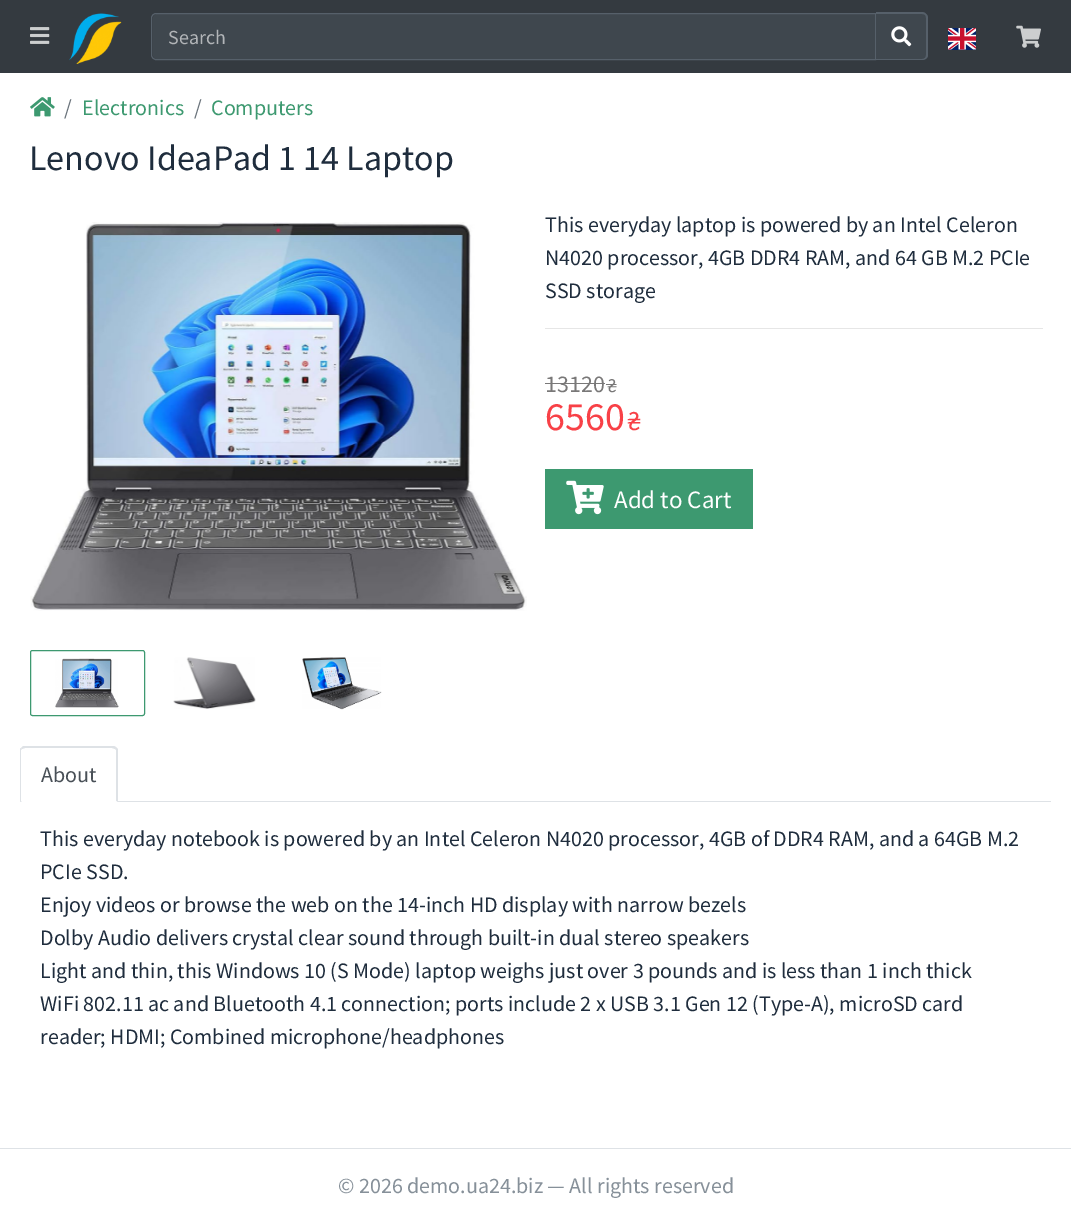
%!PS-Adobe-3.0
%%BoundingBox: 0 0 1071 1223
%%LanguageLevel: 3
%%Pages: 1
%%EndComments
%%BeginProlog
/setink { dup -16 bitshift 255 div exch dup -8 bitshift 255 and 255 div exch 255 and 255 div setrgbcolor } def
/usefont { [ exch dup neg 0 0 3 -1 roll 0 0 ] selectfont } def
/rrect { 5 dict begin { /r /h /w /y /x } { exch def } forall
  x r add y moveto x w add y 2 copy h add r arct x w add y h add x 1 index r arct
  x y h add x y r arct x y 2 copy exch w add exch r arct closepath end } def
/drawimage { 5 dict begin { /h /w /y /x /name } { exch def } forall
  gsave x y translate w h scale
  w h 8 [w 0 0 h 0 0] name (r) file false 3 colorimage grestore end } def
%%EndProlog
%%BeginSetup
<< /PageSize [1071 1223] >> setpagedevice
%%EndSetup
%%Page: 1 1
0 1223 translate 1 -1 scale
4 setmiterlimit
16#FFFFFF setink
0 0 1071 1223 rectfill
16#343A40 setink
0 0 1071 73 rectfill
(img1.raw) 30 27 20 17 drawimage
(img2.raw) 69 13 53 51 drawimage
16#3F474E setink
157 14 moveto 875 14 lineto 875 59 lineto 157 59 lineto 155 59 153 57 153 55 curveto 153 18 lineto 153 16 155 14 157 14 curveto closepath fill
16#56606A setink
156 13.5 moveto 875.5 13.5 lineto 875.5 59.5 lineto 156 59.5 lineto 153.5 59.5 151.5 57.5 151.5 55 curveto 151.5 18 lineto 151.5 15.5 153.5 13.5 156 13.5 curveto closepath stroke
/SourceSansPro-Regular 20 usefont
16#B2B5B8 setink
168 44 moveto (Search) show
16#3F474E setink
876 13 moveto 923 13 lineto 926 13 928 15 928 18 curveto 928 55 lineto 928 58 926 60 923 60 curveto 876 60 lineto closepath fill
16#56606A setink
876 12 moveto 922 12 lineto 925 12 928 15 928 18 curveto 928 55 lineto 928 58 925 60 922 60 curveto 876 60 lineto closepath 876 14 moveto 922 14 lineto 925 14 926 15 926 18 curveto 926 55 lineto 926 57 925 59 922 59 curveto 876 59 lineto closepath eofill
(img3.raw) 891 26 21 21 drawimage
(img4.raw) 948 28 28 22 drawimage
(img5.raw) 1016 25 25 23 drawimage
(img6.raw) 30 97 25 20 drawimage
/SourceSansPro-Regular 22 usefont
16#6C757D setink
64 115 moveto (/) show
16#3D9970 setink
82 115 moveto (Electronics) show
16#6C757D setink
194 115 moveto (/) show
16#3D9970 setink
211 115 moveto (Computers) show
/SourceSansPro-Regular 36 usefont
16#1F2D3D setink
29 170 moveto (Lenovo IdeaPad 1 14 Laptop) show
(img7.raw) 30 222 497 389 drawimage
16#3D9970 setink
30.5 650.5 114 65 2 rrect stroke
(img8.raw) 55 658 64 50 drawimage
(img9.raw) 173 657 83 52 drawimage
(img10.raw) 302 657 80 53 drawimage
/SourceSansPro-Regular 22 usefont
16#1F2D3D setink
[
    [(This everyday laptop is powered by an Intel Celeron) 545 232]
    [(N4020 processor, 4GB DDR4 RAM, and 64 GB M.2 PCIe) 545 265]
    [(SSD storage) 545 298]
] { aload pop moveto show } forall
16#E6E6E6 setink
545 328 498 1 rectfill
/SourceSansPro-Regular 24 usefont
16#797878 setink
545 392 moveto (13120) show
545 383 60 1 rectfill
606 384 10 1 rectfill
/SourceSansPro-Regular 20 usefont
607 392 moveto (₴) show
/SourceSansPro-Regular 40 usefont
16#F84147 setink
545 430 moveto (6560) show
/SourceSansPro-Regular 28 usefont
627 430 moveto (₴) show
16#3D9970 setink
545 469 208 60 rectfill
(img11.raw) 566 480 38 35 drawimage
/SourceSansPro-Regular 25 usefont
16#FFFFFF setink
614 508 moveto (Add to Cart) show
16#DEE2E6 setink
118 801 933 1 rectfill
25 748 moveto 22 749 lineto 21 748 lineto 23 746 lineto 114 746 lineto 116 747 lineto 115 749 lineto 112 748 lineto closepath fill
118 802 moveto 116 801 lineto 116 750 lineto 115 749 lineto 116 747 lineto 118 749 lineto closepath fill
16#FFFFFF setink
117 802 moveto 20 802 lineto 22 801 lineto 116 801 lineto closepath fill
16#DEE2E6 setink
20 751 moveto 20 802 lineto 22 801 lineto 21 801 lineto 21 750 lineto 22 749 lineto 21 748 lineto 20 748 20 750 20 751 curveto closepath fill
/SourceSansPro-Regular 22 usefont
16#495057 setink
41 782 moveto (About) show
16#1F2D3D setink
[
    [(This everyday notebook is powered by an Intel Celeron N4020 processor, 4GB of DDR4 RAM, and a 64GB M.2) 40 846]
    [(PCIe SSD.) 40 879]
    [(Enjoy videos or browse the web on the 14-inch HD display with narrow bezels) 40 912]
    [(Dolby Audio delivers crystal clear sound through built-in dual stereo speakers) 40 945]
    [(Light and thin, this Windows 10 \(S Mode\) laptop weighs just over 3 pounds and is less than 1 inch thick) 40 978]
    [(WiFi 802.11 ac and Bluetooth 4.1 connection; ports include 2 x USB 3.1 Gen 12 \(Type-A\), microSD card) 40 1011]
    [(reader; HDMI; Combined microphone/headphones) 40 1044]
] { aload pop moveto show } forall
16#DEE2E6 setink
0 1148 1071 1 rectfill
16#869099 setink
338 1193 moveto (© 2026 demo.ua24.biz — All rights reserved) show
showpage
%%EOF
